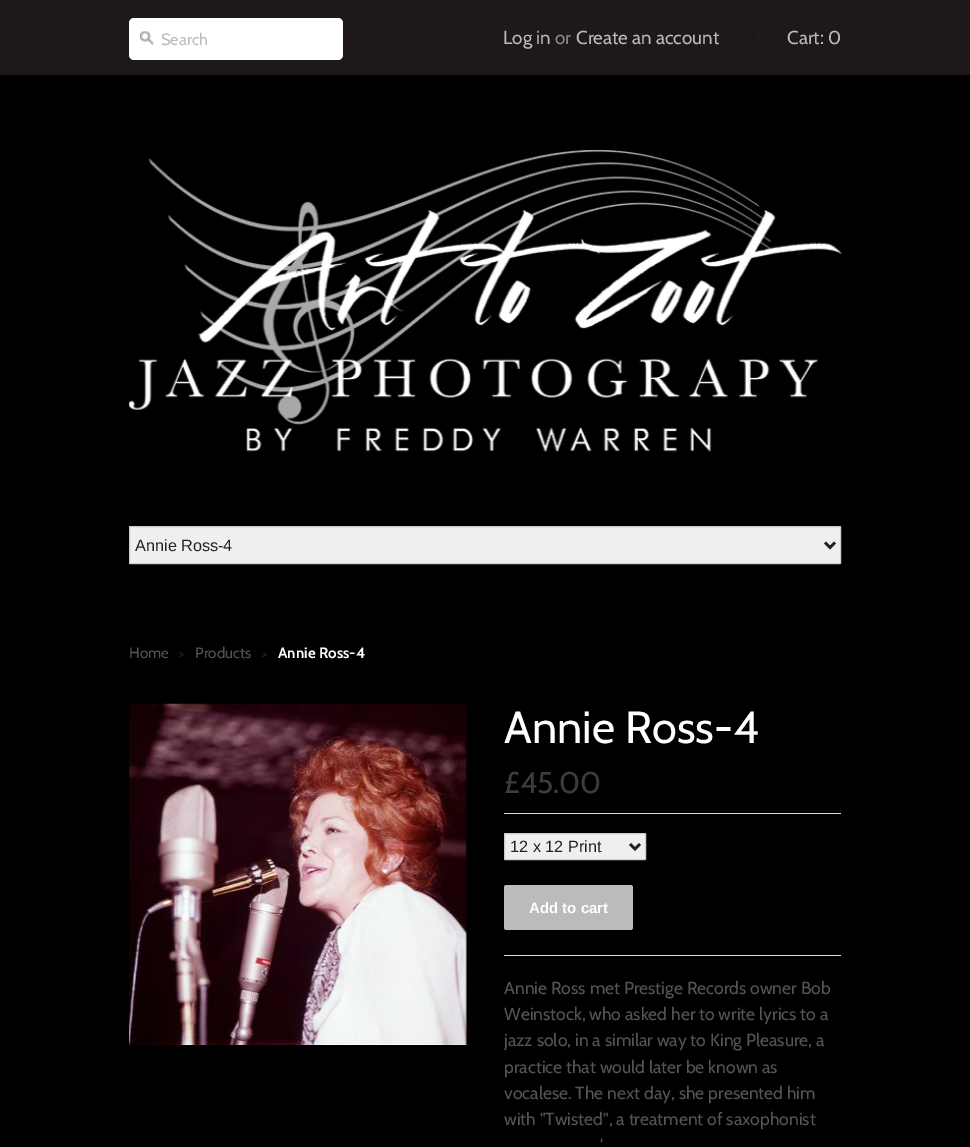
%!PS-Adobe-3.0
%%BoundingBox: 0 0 970 1147
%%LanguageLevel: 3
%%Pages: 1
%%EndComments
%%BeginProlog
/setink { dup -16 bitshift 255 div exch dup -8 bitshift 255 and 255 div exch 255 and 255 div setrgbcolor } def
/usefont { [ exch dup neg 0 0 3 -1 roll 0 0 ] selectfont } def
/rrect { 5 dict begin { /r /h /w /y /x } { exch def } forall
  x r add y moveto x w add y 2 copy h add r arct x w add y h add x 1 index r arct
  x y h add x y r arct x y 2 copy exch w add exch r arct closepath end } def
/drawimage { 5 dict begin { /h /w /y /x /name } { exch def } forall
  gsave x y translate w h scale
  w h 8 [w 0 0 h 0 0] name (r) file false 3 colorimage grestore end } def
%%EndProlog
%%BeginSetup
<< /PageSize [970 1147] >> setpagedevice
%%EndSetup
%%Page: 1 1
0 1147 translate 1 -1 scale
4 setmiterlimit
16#000000 setink
0 0 970 1147 rectfill
16#1F1818 setink
0 0 970 75 rectfill
16#FFFFFF setink
129 18 214 42 5 rrect fill
(img1.raw) 140 31 14 14 drawimage
/Cabin-Regular 16.25 usefont
16#BBBBBB setink
161 45 moveto (Search) show
/Cabin-Regular 18.75 usefont
503 44 moveto (Log in) show
16#888888 setink
555 44 moveto (or) show
16#BBBBBB setink
576 44 moveto (Create an account) show
(img2.raw) 755 29 20 17 drawimage
787 44 moveto (Cart: 0) show
(img3.raw) 129 150 713 302 drawimage
16#EFEFEF setink
129.5 526.5 711 37 0.5 rrect gsave fill grestore
16#CCCCCC setink
stroke
16#222222 setink
2.5 setlinewidth
825 542.5 moveto 830 547.5 lineto 835 542.5 lineto stroke
/LiberationSans-Regular 16.25 usefont
135 551 moveto (Annie Ross-4) show
/Cabin-Regular 15 usefont
16#555555 setink
129 658 moveto (Home) show
/Cabin-Regular 12 usefont
16#2B2B2B setink
179 658 moveto (>) show
/Cabin-Regular 15 usefont
16#555555 setink
195 658 moveto (Products) show
/Cabin-Regular 12 usefont
16#2B2B2B setink
262 658 moveto (>) show
/Cabin-Bold 15 usefont
16#FFFFFF setink
278 658 moveto (Annie Ross-4) show
(img4.raw) 129 703 338 342 drawimage
/Cabin-Regular 45 usefont
504 743 moveto (Annie Ross-4) show
/Cabin-Regular 30 usefont
16#3C3C3C setink
504 793 moveto (£45.00) show
16#DDDDDD setink
504 813 337 1 rectfill
504 955 337 1 rectfill
16#EFEFEF setink
504.5 833.5 141 26 0.5 rrect gsave fill grestore
16#CCCCCC setink
1 setlinewidth
stroke
16#222222 setink
2.5 setlinewidth
630 844 moveto 635 849 lineto 640 844 lineto stroke
/LiberationSans-Regular 16.25 usefont
510 852 moveto (12 x 12 Print) show
16#BBBBBB setink
504 885 129 45 2.5 rrect fill
/LiberationSans-Bold 15 usefont
16#FFFFFF setink
529 913 moveto (Add to cart) show
/Cabin-Regular 17.5 usefont
16#555555 setink
[
    [(Annie Ross met Prestige Records owner Bob) 504 994]
    [(Weinstock, who asked her to write lyrics to a) 504 1020]
    [(jazz solo, in a similar way to King Pleasure, a) 504 1046]
    [(practice that would later be known as) 504 1073]
    [(vocalese. The next day, she presented him) 504 1099]
    [(with "Twisted", a treatment of saxophonist) 504 1125]
    [(') 600 1151]
] { aload pop moveto show } forall
showpage
%%EOF
